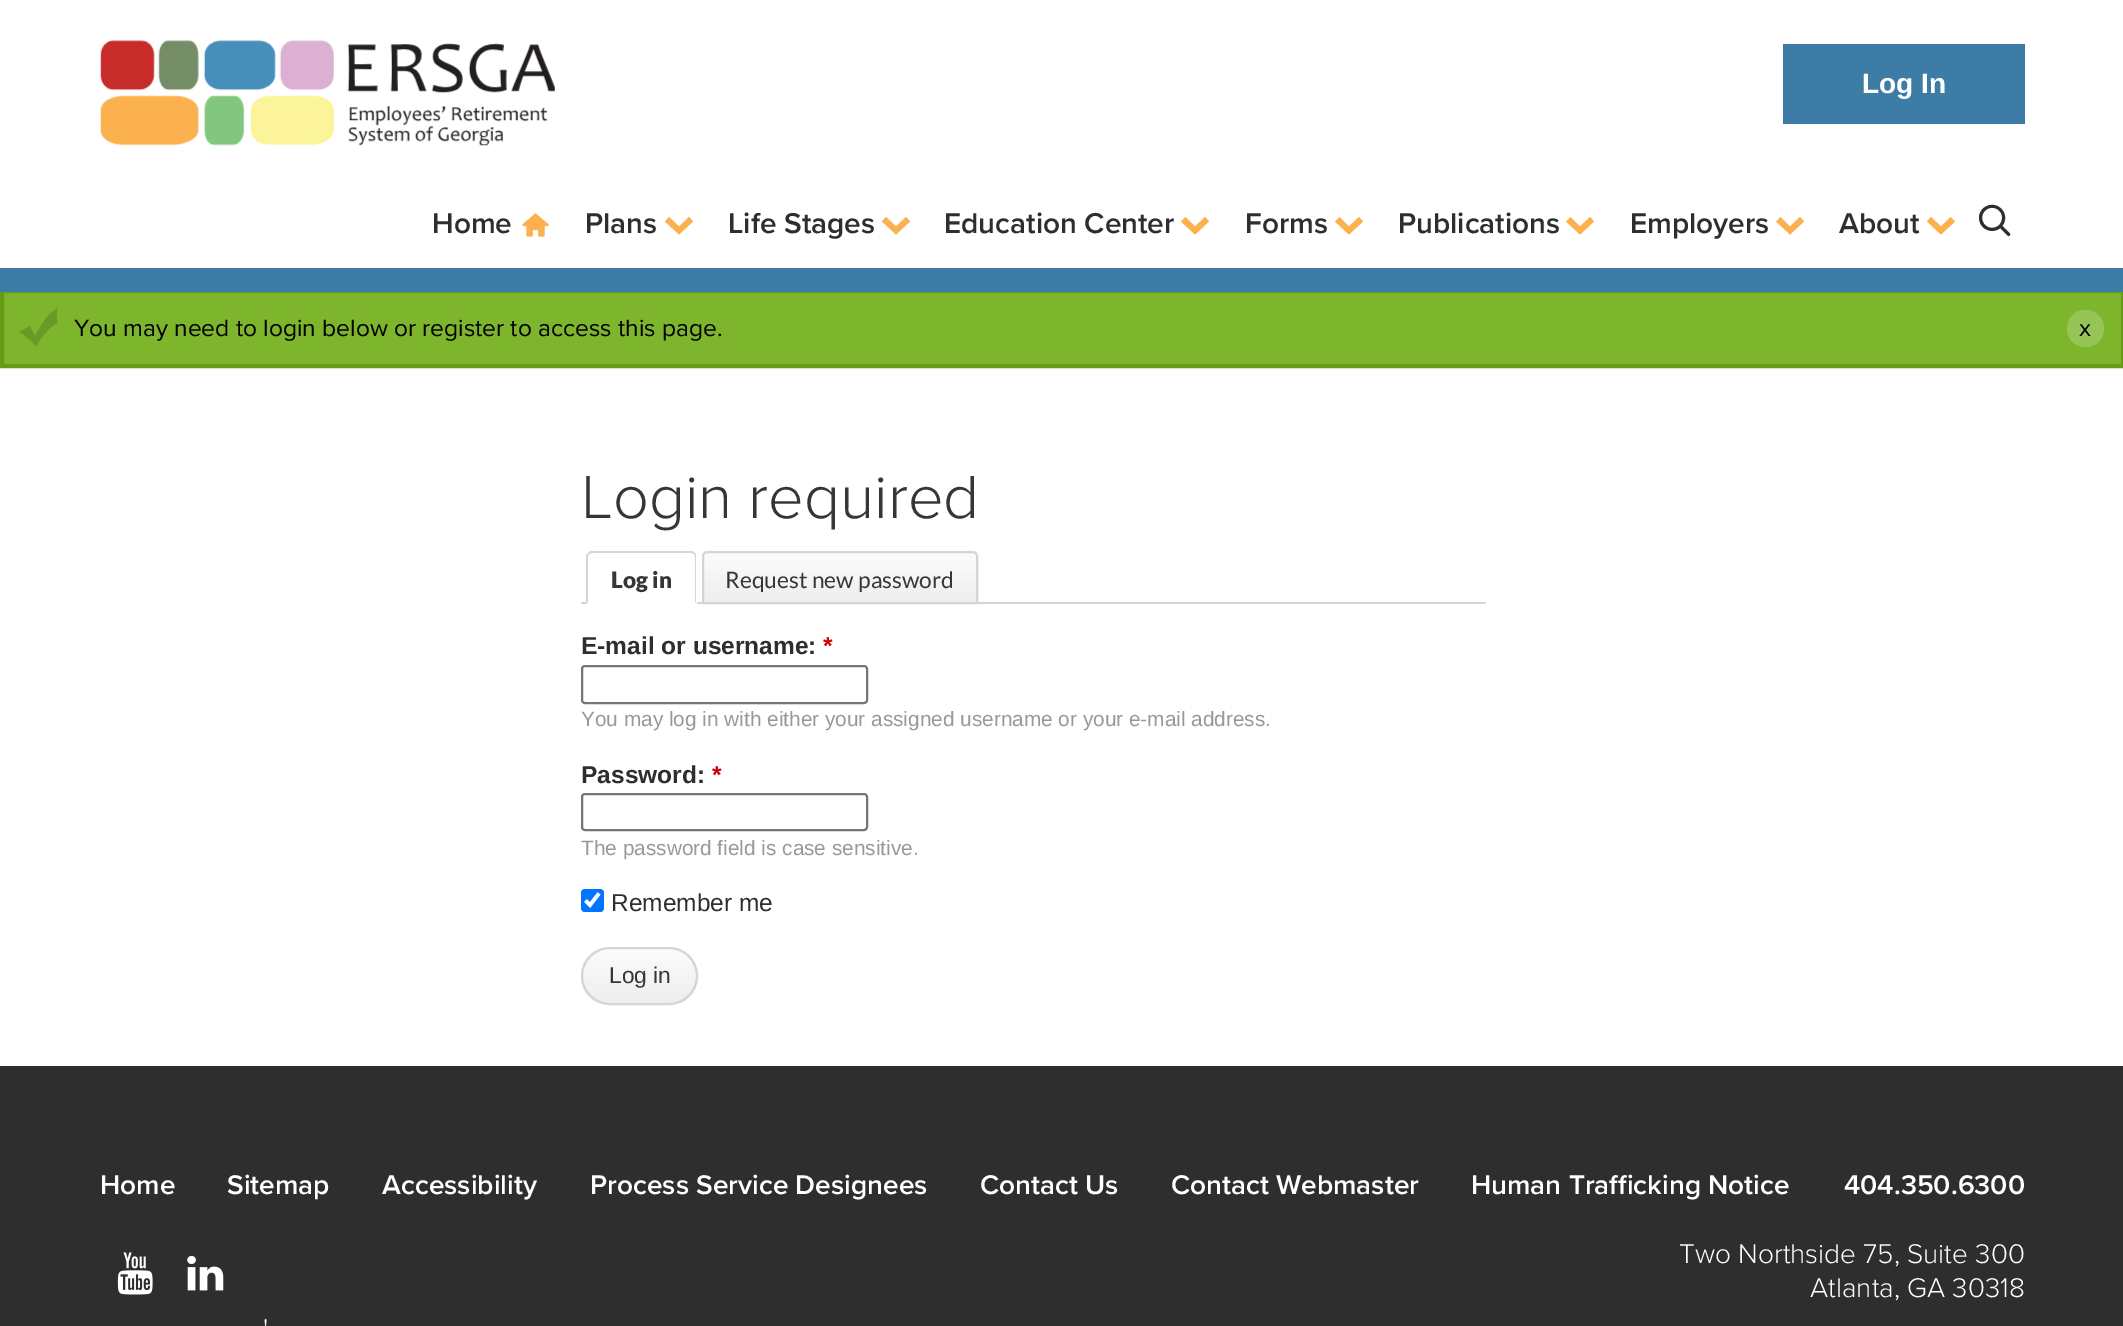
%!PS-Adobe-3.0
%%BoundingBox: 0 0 2123 1326
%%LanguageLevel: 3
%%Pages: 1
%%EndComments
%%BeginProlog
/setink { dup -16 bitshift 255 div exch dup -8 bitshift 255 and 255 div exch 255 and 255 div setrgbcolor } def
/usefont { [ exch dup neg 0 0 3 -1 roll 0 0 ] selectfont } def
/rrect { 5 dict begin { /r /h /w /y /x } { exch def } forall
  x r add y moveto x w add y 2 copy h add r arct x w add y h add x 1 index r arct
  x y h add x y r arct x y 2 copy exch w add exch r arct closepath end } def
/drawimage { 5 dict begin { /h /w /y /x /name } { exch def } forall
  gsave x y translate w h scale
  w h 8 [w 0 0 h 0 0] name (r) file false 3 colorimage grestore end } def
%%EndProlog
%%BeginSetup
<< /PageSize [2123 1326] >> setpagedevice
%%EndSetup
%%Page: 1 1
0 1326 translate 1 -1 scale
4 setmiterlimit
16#FFFFFF setink
0 0 2123 1326 rectfill
16#7DB52D setink
4 293 2117 71 rectfill
(img3.raw) 19 308 39 39 drawimage
16#679C1A setink
4 setlinewidth
2 291 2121 75 rectstroke
16#3D7CA4 setink
0 268 2123 24 rectfill
1783 44 242 80 rectfill
/LiberationSans-Bold 28 usefont
16#FFFFFF setink
1862 93 moveto (Log In) show
/ProximaNova-SemiBold 29.75 usefont
16#2E2E2E setink
432 233 moveto (Home) show
(img1.raw) 522 213 27 24 drawimage
585 233 moveto (Plans) show
16#FBB24E setink
665 221.5 moveto 669 217 lineto 679 226.5 lineto 689 217 lineto 693 221.5 lineto 679 234.5 lineto closepath fill
16#2E2E2E setink
728 233 moveto (Life Stages) show
16#FBB24E setink
882 221.5 moveto 886 217 lineto 896 226.5 lineto 906 217 lineto 910 221.5 lineto 896 234.5 lineto closepath fill
16#2E2E2E setink
944 233 moveto (Education Center) show
16#FBB24E setink
1181 221.5 moveto 1185.5 217 lineto 1195 226.5 lineto 1205 217 lineto 1209 221.5 lineto 1195 234.5 lineto closepath fill
16#2E2E2E setink
1245 233 moveto (Forms) show
16#FBB24E setink
1335 221.5 moveto 1339.5 217 lineto 1349 226.5 lineto 1359 217 lineto 1363 221.5 lineto 1349 234.5 lineto closepath fill
16#2E2E2E setink
1398 233 moveto (Publications) show
16#FBB24E setink
1566 221.5 moveto 1570.5 217 lineto 1580 226.5 lineto 1590 217 lineto 1594 221.5 lineto 1580 234.5 lineto closepath fill
16#2E2E2E setink
1630 233 moveto (Employers) show
16#FBB24E setink
1776 221.5 moveto 1780.5 217 lineto 1790 226.5 lineto 1800 217 lineto 1804 221.5 lineto 1790 234.5 lineto closepath fill
16#2E2E2E setink
1839 233 moveto (About) show
16#FBB24E setink
1927 221.5 moveto 1931 217 lineto 1941 226.5 lineto 1950.5 217 lineto 1955 221.5 lineto 1941 234.5 lineto closepath fill
(img2.raw) 100 40 455 106 drawimage
/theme-Regular 56 usefont
16#2E2E2E setink
1979 245 moveto (?) show
/ProximaNova-Regular 24.5 usefont
16#000000 setink
74 336 moveto (You may need to login below or register to access this page.) show
16#97C457 setink
2067 310 37 37 18 rrect fill
16#000000 setink
2079 336 moveto (x) show
/ProximaNova-Light 63 usefont
16#363636 setink
581 518 moveto (Login required) show
16#D5D5D5 setink
581 602 905 2 rectfill
16#FFFFFF setink
591 551 moveto 692 551 lineto 695 551 697 553 697 556 curveto 697 604 lineto 586 604 lineto 586 556 lineto 586 553 588 551 591 551 curveto closepath fill
16#D5D5D5 setink
592 553 moveto 589 554 lineto 588 553 lineto 590 551 lineto 692 551 lineto 695 553 lineto 694 554 lineto 691 553 lineto closepath fill
695 553 moveto 696 554 696 555 696 556 curveto 696 603 lineto 695 602 lineto 695 556 lineto 694 554 lineto closepath fill
16#FFFFFF setink
696 603 moveto 696 604 lineto 586 604 lineto 588 602 lineto 695 602 lineto closepath fill
16#D5D5D5 setink
586 604 moveto 586 555 lineto 588 553 lineto 589 554 lineto 588 556 lineto 588 602 lineto closepath fill
/Lato-Black 22.75 usefont
16#363636 setink
611 588 moveto (Log in) show
gsave
707 551 moveto 973 551 lineto 976 551 978 553 978 556 curveto 978 604 lineto 702 604 lineto 702 556 lineto 702 553 704 551 707 551 curveto closepath clip newpath
gsave 702 553 moveto 978 553 lineto 978 602 lineto 702 602 lineto closepath clip newpath
<< /ShadingType 2 /ColorSpace /DeviceRGB /Coords [840 553 840 602] /Extend [true true] /Function << /FunctionType 2 /Domain [0 1] /C0 [0.988 0.988 0.988] /C1 [0.933 0.933 0.933] /N 1 >> >> shfill grestore
grestore
16#D5D5D5 setink
2 setlinewidth
707 552 moveto 973 552 lineto 975 552 977 554 977 556 curveto 977 603 lineto 703 603 lineto 703 556 lineto 703 554 705 552 707 552 curveto closepath stroke
/Lato-Regular 22.75 usefont
16#363636 setink
725 588 moveto (Request new password) show
/LiberationSans-Bold 24.5 usefont
16#2E2E2E setink
581 654 moveto (E-mail or username:) show
16#CC0000 setink
823 654 moveto (*) show
16#767676 setink
582 666 285 37 3 rrect stroke
/LiberationSans-Regular 20.8 usefont
16#999999 setink
581 726 moveto (You may log in with either your assigned username or your e-mail address.) show
/LiberationSans-Bold 24.5 usefont
16#2E2E2E setink
581 783 moveto (Password:) show
16#CC0000 setink
712 783 moveto (*) show
16#767676 setink
582 794 285 36 3 rrect stroke
/LiberationSans-Regular 20.8 usefont
16#999999 setink
581 855 moveto (The password field is case sensitive.) show
16#0075FF setink
581 889 23 23 4 rrect fill
16#FFFFFF setink
3.6 setlinewidth
585.5 900.5 moveto 590 905 lineto 599 893.5 lineto stroke
/LiberationSans-Regular 24.5 usefont
16#2E2E2E setink
611 911 moveto (Remember me) show
gsave
581 947 117 58 29 rrect clip newpath
gsave 581 949 moveto 698 949 lineto 698 1003 lineto 581 1003 lineto closepath clip newpath
<< /ShadingType 2 /ColorSpace /DeviceRGB /Coords [640 949 640 1003] /Extend [true true] /Function << /FunctionType 2 /Domain [0 1] /C0 [0.988 0.988 0.988] /C1 [0.933 0.933 0.933] /N 1 >> >> shfill grestore
grestore
16#D5D5D5 setink
2 setlinewidth
582 948 115 56 28 rrect stroke
/LiberationSans-Regular 22.75 usefont
16#363636 setink
609 983 moveto (Log in) show
16#2E2E2E setink
0 1066 2123 260 rectfill
/ProximaNova-SemiBold 28 usefont
16#FFFFFF setink
[
    [(Home) 100 1194]
    [(Sitemap) 227 1194]
    [(Accessibility) 382 1194]
    [(Process Service Designees) 590 1194]
    [(Contact Us) 980 1194]
    [(Contact Webmaster) 1171 1194]
    [(Human Trafficking Notice) 1471 1194]
    [(404.350.6300) 1844 1194]
] { aload pop moveto show } forall
/ProximaNova-Light 28 usefont
1679 1263 moveto (Two Northside 75, Suite 300) show
1810 1297 moveto (Atlanta, GA 30318) show
(img4.raw) 117 1252 36 43 drawimage
(img5.raw) 187 1256 37 35 drawimage
263 1338 moveto (') show
showpage
%%EOF
